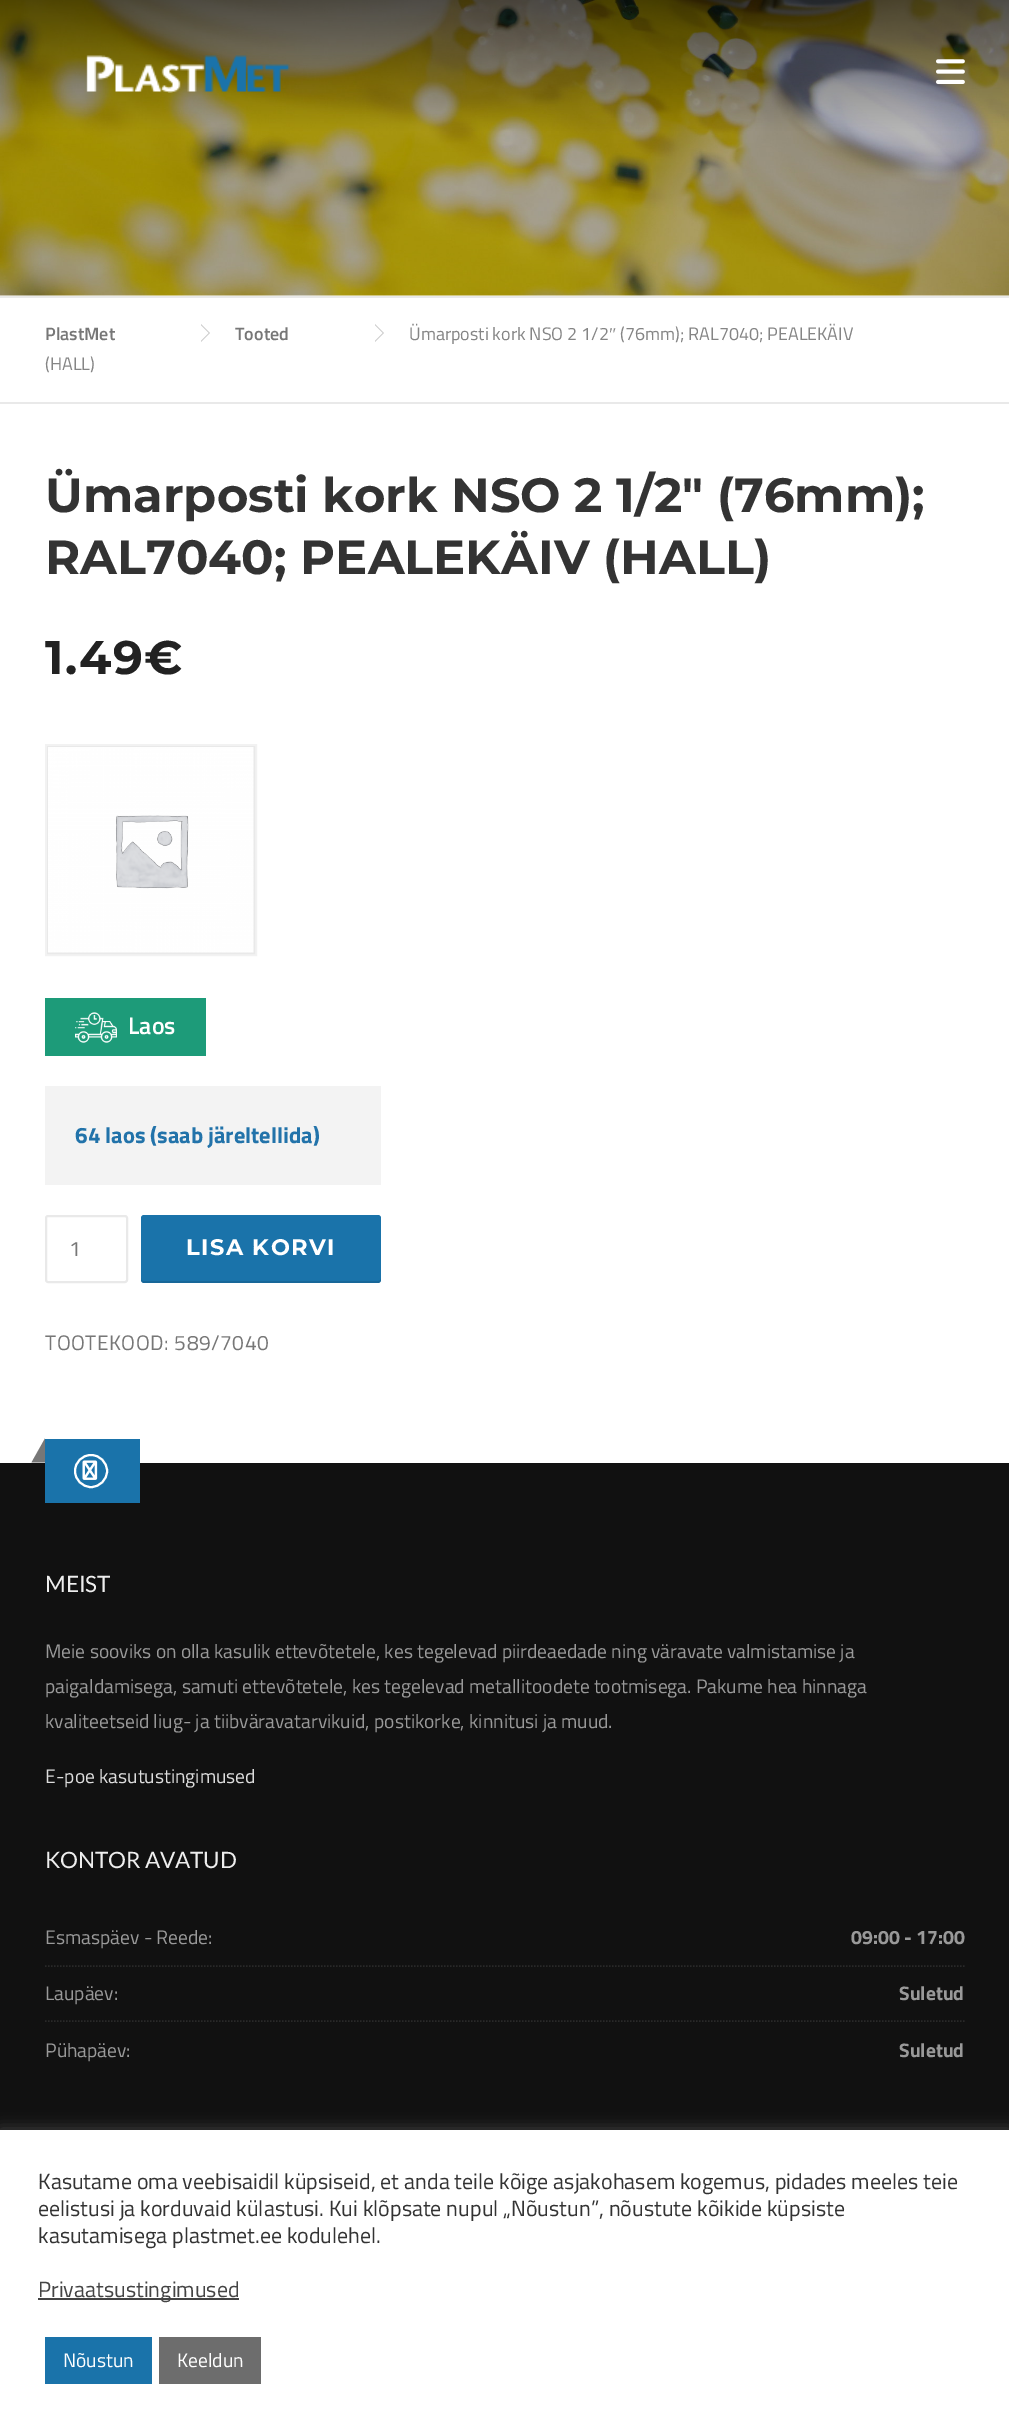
%!PS-Adobe-3.0
%%BoundingBox: 0 0 1009 2420
%%LanguageLevel: 3
%%Pages: 1
%%EndComments
%%BeginProlog
/setink { dup -16 bitshift 255 div exch dup -8 bitshift 255 and 255 div exch 255 and 255 div setrgbcolor } def
/usefont { [ exch dup neg 0 0 3 -1 roll 0 0 ] selectfont } def
/setalpha { dup .setfillconstantalpha .setstrokeconstantalpha } def
/disc { newpath 0 360 arc closepath } def
/rrect { 5 dict begin { /r /h /w /y /x } { exch def } forall
  x r add y moveto x w add y 2 copy h add r arct x w add y h add x 1 index r arct
  x y h add x y r arct x y 2 copy exch w add exch r arct closepath end } def
/softshadow { 12 dict begin { /a /b /q /h /w /y /x } { exch def } forall gsave /was 0 def
  9 -2 -9 { dup b mul 4 div /e exch def 1 sub .425 mul 2.718 exch exp 1 add a .99 .min exch div /now exch def
    1 1 now sub 1 was sub div sub setalpha /was now def
    w h .min e 2 mul add 0 gt { x e sub y e sub w e 2 mul add h e 2 mul add
      q e add b .6 mul add w h .min 2 div e add .min 0 .max rrect fill } if } for grestore end } def
/drawimage { 5 dict begin { /h /w /y /x /name } { exch def } forall
  gsave x y translate w h scale
  w h 8 [w 0 0 h 0 0] name (r) file false 3 colorimage grestore end } def
%%EndProlog
%%BeginSetup
<< /PageSize [1009 2420] /PageUsesTransparency true >> setpagedevice
%%EndSetup
%%Page: 1 1
0 .pushpdf14devicefilter
0 2420 translate 1 -1 scale
4 setmiterlimit
16#FFFFFF setink
0 0 1009 2420 rectfill
(img3.raw) 0 0 1009 296 drawimage
(img1.raw) 86 55 204 38 drawimage
(img2.raw) 936 59 29 25 drawimage
16#E9E9E9 setink
0 296 1009 2 rectfill
0 402 1009 2 rectfill
16#CCCCCC setink
201 342 moveto 201 324 lineto 210 333 lineto closepath fill
/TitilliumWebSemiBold-SemiBold 18 usefont
16#777777 setink
45 340 moveto (PlastMet) show
16#FFFFFF setink
201 340.5 moveto 201 325.5 lineto 208.5 333 lineto closepath fill
16#CCCCCC setink
375 342 moveto 375 324 lineto 384 333 lineto closepath fill
16#777777 setink
235 340 moveto (Tooted) show
16#FFFFFF setink
375 340.5 moveto 375 325.5 lineto 382.5 333 lineto closepath fill
/TitilliumWeb-Regular 18 usefont
16#858585 setink
409 340 moveto (Ümarposti kork NSO 2 1/2) show
/LiberationSerif-Regular 18 usefont
609 340 moveto (″) show
/TitilliumWeb-Regular 18 usefont
620 340 moveto (\(76mm\); RAL7040; PEALEKÄIV) show
45 370 moveto (\(HALL\)) show
/Montserrat-Thin 48 usefont
16#333333 setink
45 512 moveto (Ümarposti kork NSO 2 1/2″ \(76mm\);) show
45 574 moveto (RAL7040; PEALEKÄIV \(HALL\)) show
/Montserrat-Thin 47 usefont
16#222222 setink
45 674 moveto 1.5 0 (1.49€) ashow
16#F2F2F2 setink
2 setlinewidth
46 745 210 210 rectstroke
16#E9E9E9 setink
48 747 206 206 rectstroke
(img4.raw) 48 747 206 206 drawimage
16#1D9B79 setink
45 998 161 58 rectfill
(img5.raw) 75 1012 42 31 drawimage
/TitilliumWebSemiBold-SemiBold 24 usefont
16#FFFFFF setink
128 1034 moveto (Laos) show
16#F3F3F3 setink
45 1086 336 99 rectfill
/TitilliumWeb-Bold 22.5 usefont
16#2273AA setink
75 1143 moveto (64 laos \(saab järeltellida\)) show
16#E9E9E9 setink
46 1216 81 66 2 rrect stroke
/TitilliumWeb-Regular 21 usefont
16#777777 setink
69 1256 moveto (1) show
16#1A73AA setink
141 1215 240 68 3 rrect fill
0.1 setalpha
16#000000 setink
141 1278 moveto 141 1280 141 1283 144 1283 curveto 379 1283 lineto 381 1282 381 1280 381 1278 curveto 381 1280 380 1281 378 1281 curveto 143 1281 lineto 141 1280 lineto closepath fill
/Montserrat-Thin 22.5 usefont
1 setalpha
16#FFFFFF setink
186 1255 moveto 1.5 0 (LISA KORVI) ashow
/TitilliumWeb-Regular 21 usefont
16#777777 setink
45 1350 moveto 0.5 0 (TOOTEKOOD: 589/7040) ashow
16#111111 setink
0 1463 1009 667 rectfill
16#1A73AA setink
45 1439 95 64 rectfill
16#777777 setink
45 1438.5 moveto 45 1462.5 lineto 31.5 1462.5 lineto closepath fill
16#FFFFFF setink
91 1471 16 disc stroke
(img6.raw) 82 1460 16 20 drawimage
/Lato-Regular 22.5 usefont
16#EEEEEE setink
45 1592 moveto -0.1 0 (MEIST) ashow
/TitilliumWeb-Regular 19.5 usefont
16#999999 setink
[
    [(Meie sooviks on olla kasulik ettevõtetele, kes tegelevad piirdeaedade ning väravate valmistamise ja) 45 1658]
    [(paigaldamisega, samuti ettevõtetele, kes tegelevad metallitoodete tootmisega. Pakume hea hinnaga) 45 1693]
    [(kvaliteetseid liug- ja tiibväravatarvikuid, postikorke, kinnitusi ja muud.) 45 1728]
] { aload pop moveto show } forall
16#DDDDDD setink
45 1783 moveto (E-poe kasutustingimused) show
/Lato-Regular 22.5 usefont
16#EEEEEE setink
45 1868 moveto -0.1 0 (KONTOR AVATUD) ashow
/TitilliumWeb-Regular 19.5 usefont
16#999999 setink
45 1944 moveto (Esmaspäev - Reede:) show
/TitilliumWeb-Bold 19.5 usefont
851 1944 moveto (09:00 - 17:00) show
16#292929 setink
1.5 setlinewidth
[1.5 1.5] 0 setdash
45 1966 moveto 964.5 1966 lineto stroke
/TitilliumWeb-Regular 19.5 usefont
16#999999 setink
45 2000 moveto (Laupäev:) show
/TitilliumWeb-Bold 19.5 usefont
899 2000 moveto (Suletud) show
16#292929 setink
45 2021 moveto 964.5 2021 lineto stroke
/TitilliumWeb-Regular 19.5 usefont
16#999999 setink
45 2057 moveto (Pühapäev:) show
/TitilliumWeb-Bold 19.5 usefont
899 2057 moveto (Suletud) show
16#ACABAB setink
0 2129 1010 291 0 7.5 0.3 softshadow
16#FFFFFF setink
0 2130 1009 290 rectfill
/TitilliumWeb-Regular 22 usefont
16#333333 setink
[
    [(Kasutame oma veebisaidil küpsiseid, et anda teile kõige asjakohasem kogemus, pidades meeles teie) 38 2189]
    [(eelistusi ja korduvaid külastusi. Kui klõpsate nupul „Nõustun”, nõustute kõikide küpsiste) 38 2216]
    [(kasutamisega plastmet.ee kodulehel.) 38 2243]
] { aload pop moveto show } forall
16#444444 setink
38 2298 201 2 rectfill
38 2297 moveto (Privaatsustingimused) show
16#1A73AA setink
45 2337 107 47 rectfill
/TitilliumWeb-Regular 19.5 usefont
16#FFFFFF setink
63 2367 moveto (Nõustun) show
16#6D6D6D setink
159 2337 102 47 rectfill
16#FFFFFF setink
177 2367 moveto (Keeldun) show
.poppdf14devicefilter showpage
%%EOF
